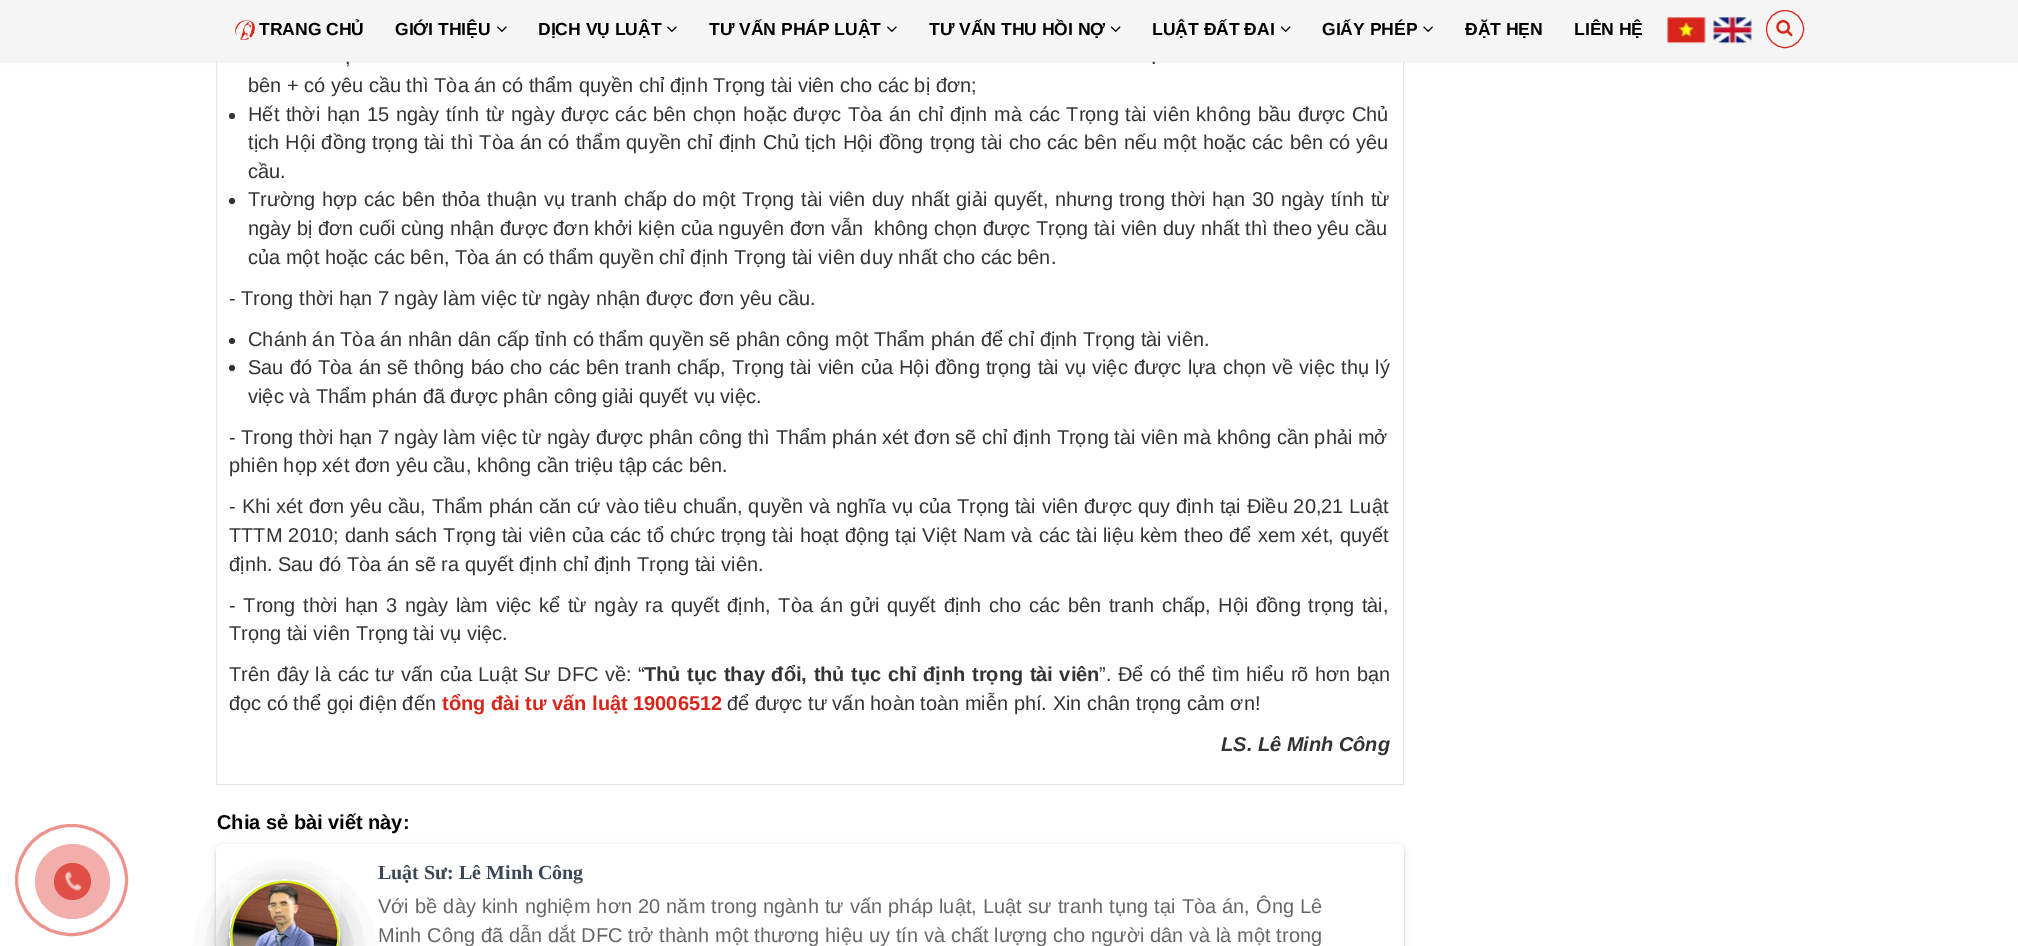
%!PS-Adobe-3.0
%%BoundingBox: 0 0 2018 946
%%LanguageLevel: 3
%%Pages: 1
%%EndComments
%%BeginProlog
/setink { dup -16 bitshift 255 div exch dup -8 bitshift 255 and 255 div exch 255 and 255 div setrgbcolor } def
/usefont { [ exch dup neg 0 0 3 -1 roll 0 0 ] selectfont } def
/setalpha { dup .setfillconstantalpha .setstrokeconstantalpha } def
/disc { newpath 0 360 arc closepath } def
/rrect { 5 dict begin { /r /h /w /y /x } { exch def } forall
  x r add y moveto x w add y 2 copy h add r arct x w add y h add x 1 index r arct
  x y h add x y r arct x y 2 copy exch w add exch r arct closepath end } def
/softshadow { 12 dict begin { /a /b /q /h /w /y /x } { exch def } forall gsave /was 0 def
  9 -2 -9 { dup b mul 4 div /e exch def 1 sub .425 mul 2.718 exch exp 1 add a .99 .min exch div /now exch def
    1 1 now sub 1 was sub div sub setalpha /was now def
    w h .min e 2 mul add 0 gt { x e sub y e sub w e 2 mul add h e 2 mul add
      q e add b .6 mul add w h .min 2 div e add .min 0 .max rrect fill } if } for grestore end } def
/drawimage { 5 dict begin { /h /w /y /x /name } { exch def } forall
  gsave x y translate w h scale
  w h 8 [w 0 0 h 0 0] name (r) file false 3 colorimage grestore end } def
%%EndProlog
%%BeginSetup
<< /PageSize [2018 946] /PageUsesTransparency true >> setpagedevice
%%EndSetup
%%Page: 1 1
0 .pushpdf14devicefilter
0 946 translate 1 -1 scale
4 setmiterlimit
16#FFFFFF setink
0 0 2018 946 rectfill
16#E6E6E6 setink
216.5 -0.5 1187 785 rectstroke
16#DDDDDD setink
0 0 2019 61 0 2 1 softshadow
16#F5F5F5 setink
0 0 2018 61 rectfill
(img1.raw) 235 20 20 20 drawimage
/LiberationSans-Bold 17.5 usefont
16#000000 setink
259 35 moveto (TRANG CHỦ) show
395 35 moveto (GIỚI THIỆU) show
(img2.raw) 497 26 10 6 drawimage
538 35 moveto (DỊCH VỤ LUẬT) show
(img2.raw) 667 26 10 6 drawimage
709 35 moveto (TƯ VẤN PHÁP LUẬT) show
(img2.raw) 887 26 10 6 drawimage
929 35 moveto (TƯ VẤN THU HỒI NỢ) show
(img3.raw) 1110 26 11 6 drawimage
1152 35 moveto (LUẬT ĐẤT ĐAI) show
(img3.raw) 1280 26 11 6 drawimage
1322 35 moveto (GIẤY PHÉP) show
(img4.raw) 1423 26 10 6 drawimage
1465 35 moveto (ĐẶT HẸN) show
1574 35 moveto (LIÊN HỆ) show
(img5.raw) 1667 17 39 27 drawimage
(img6.raw) 1713 17 39 27 drawimage
16#D9261B setink
1785 29 18.5 disc stroke
(img7.raw) 1776 20 17 17 drawimage
16#EC938D setink
3 setlinewidth
16.5 825.5 110 109 54.5 rrect stroke
16#F1AEAA setink
72.5 881.5 37.5 disc fill
16#E04F46 setink
72.5 881.5 18.5 disc fill
(img8.raw) 64 871 18 20 drawimage
/LiberationSans-Regular 20 usefont
16#333333 setink
345 64 moveto 1 0 32 (,) widthshow
1151 64 moveto 1 0 32 (.) widthshow
248 92 moveto (bên + có yêu cầu thì Tòa án có thẩm quyền chỉ định Trọng tài viên cho các bị đơn;) show
232 116 3 disc fill
248 121 moveto 1.1 0 32 (Hết thời hạn 15 ngày tính từ ngày được các bên chọn hoặc được Tòa án chỉ định mà các Trọng tài viên không bầu được Chủ) widthshow
248 149 moveto 0.6 0 32 (tịch Hội đồng trọng tài thì Tòa án có thẩm quyền chỉ định Chủ tịch Hội đồng trọng tài cho các bên nếu một hoặc các bên có yêu) widthshow
248 178 moveto (cầu.) show
232 201 3 disc fill
248 206 moveto 1 0 32 (Trường hợp các bên thỏa thuận vụ tranh chấp do một Trọng tài viên duy nhất giải quyết, nhưng trong thời hạn 30 ngày tính từ) widthshow
[
    [(ngày bị đơn cuối cùng nhận được đơn khởi kiện của nguyên đơn vẫn  không chọn được Trọng tài viên duy nhất thì theo yêu cầu) 248 235]
    [(của một hoặc các bên, Tòa án có thẩm quyền chỉ định Trọng tài viên duy nhất cho các bên.) 248 264]
    [(- Trong thời hạn 7 ngày làm việc từ ngày nhận được đơn yêu cầu.) 229 305]
] { aload pop moveto show } forall
232 341 3 disc fill
248 346 moveto (Chánh án Tòa án nhân dân cấp tỉnh có thẩm quyền sẽ phân công một Thẩm phán để chỉ định Trọng tài viên.) show
232 368 3 disc fill
248 374 moveto 0.6 0 32 (Sau đó Tòa án sẽ thông báo cho các bên tranh chấp, Trọng tài viên của Hội đồng trọng tài vụ việc được lựa chọn về việc thụ lý) widthshow
[
    [(việc và Thẩm phán đã được phân công giải quyết vụ việc.) 248 403]
    [(- Trong thời hạn 7 ngày làm việc từ ngày được phân công thì Thẩm phán xét đơn sẽ chỉ định Trọng tài viên mà không cần phải mở) 229 444]
    [(phiên họp xét đơn yêu cầu, không cần triệu tập các bên.) 229 472]
] { aload pop moveto show } forall
229 513 moveto 0.3 0 32 (- Khi xét đơn yêu cầu, Thẩm phán căn cứ vào tiêu chuẩn, quyền và nghĩa vụ của Trọng tài viên được quy định tại Điều 20,21 Luật) widthshow
229 542 moveto 0.55 0 32 (TTTM 2010; danh sách Trọng tài viên của các tổ chức trọng tài hoạt động tại Việt Nam và các tài liệu kèm theo để xem xét, quyết) widthshow
229 571 moveto (định. Sau đó Tòa án sẽ ra quyết định chỉ định Trọng tài viên.) show
229 612 moveto 2.1 0 32 (- Trong thời hạn 3 ngày làm việc kể từ ngày ra quyết định, Tòa án gửi quyết định cho các bên tranh chấp, Hội đồng trọng tài,) widthshow
229 640 moveto (Trọng tài viên Trọng tài vụ việc.) show
229 681 moveto 1 0 32 (Trên đây là các tư vấn của Luật Sư DFC về: “) widthshow
/LiberationSans-Bold 20 usefont
644 681 moveto 1 0 32 (Thủ tục thay đổi, thủ tục chỉ định trọng tài viên) widthshow
/LiberationSans-Regular 20 usefont
1099 681 moveto 1 0 32 (”. Để có thể tìm hiểu rõ hơn bạn) widthshow
229 710 moveto (đọc có thể gọi điện đến) show
/LiberationSans-Bold 20 usefont
16#D9261B setink
442 710 moveto (tổng đài tư vấn luật 19006512) show
/LiberationSans-Regular 20 usefont
16#333333 setink
727 710 moveto (để được tư vấn hoàn toàn miễn phí. Xin chân trọng cảm ơn!) show
/LiberationSans-BoldItalic 20 usefont
1221 751 moveto (LS. Lê Minh Công) show
/LiberationSans-Bold 20 usefont
16#000000 setink
217 829 moveto (Chia sẻ bài viết này:) show
216 845 1188 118 8 3 0.12 softshadow
216 846 1188 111 8 1 0.14 softshadow
16#FFFFFF setink
216 844 1188 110 8 rrect fill
gsave
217 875 moveto 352 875 lineto 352 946 lineto 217 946 lineto closepath 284.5 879 moveto 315 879 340 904 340 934.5 curveto 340 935.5 lineto 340 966 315 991 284.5 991 curveto 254 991 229 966 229 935.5 curveto 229 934.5 lineto 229 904 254 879 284.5 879 curveto closepath eoclip newpath
16#000000 setink
236 894 97 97 48.5 6 0.4 softshadow
grestore
gsave
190 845 moveto 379 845 lineto 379 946 lineto 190 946 lineto closepath 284.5 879 moveto 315 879 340 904 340 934.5 curveto 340 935.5 lineto 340 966 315 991 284.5 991 curveto 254 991 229 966 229 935.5 curveto 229 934.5 lineto 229 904 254 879 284.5 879 curveto closepath eoclip newpath
16#000000 setink
229 884 111 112 55.5 12.5 0.15 softshadow
grestore
gsave
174 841 moveto 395 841 lineto 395 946 lineto 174 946 lineto closepath 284.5 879 moveto 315 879 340 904 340 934.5 curveto 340 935.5 lineto 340 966 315 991 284.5 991 curveto 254 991 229 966 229 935.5 curveto 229 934.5 lineto 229 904 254 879 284.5 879 curveto closepath eoclip newpath
16#000000 setink
244 911 81 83 40.5 23 0.6 softshadow
grestore
(img9.raw) 230 880 110 66 drawimage
/LiberationSerif-Bold 20 usefont
16#3C4858 setink
378 879 moveto (Luật Sư: Lê Minh Công) show
/LiberationSans-Regular 20 usefont
16#666666 setink
378 913 moveto 0.6 0 32 (Với bề dày kinh nghiệm hơn 20 năm trong ngành tư vấn pháp luật, Luật sư tranh tụng tại Tòa án, Ông Lê) widthshow
378 942 moveto 0.2 0 32 (Minh Công đã dẫn dắt DFC trở thành một thương hiệu uy tín và chất lượng cho người dân và là một trong) widthshow
.poppdf14devicefilter showpage
%%EOF
